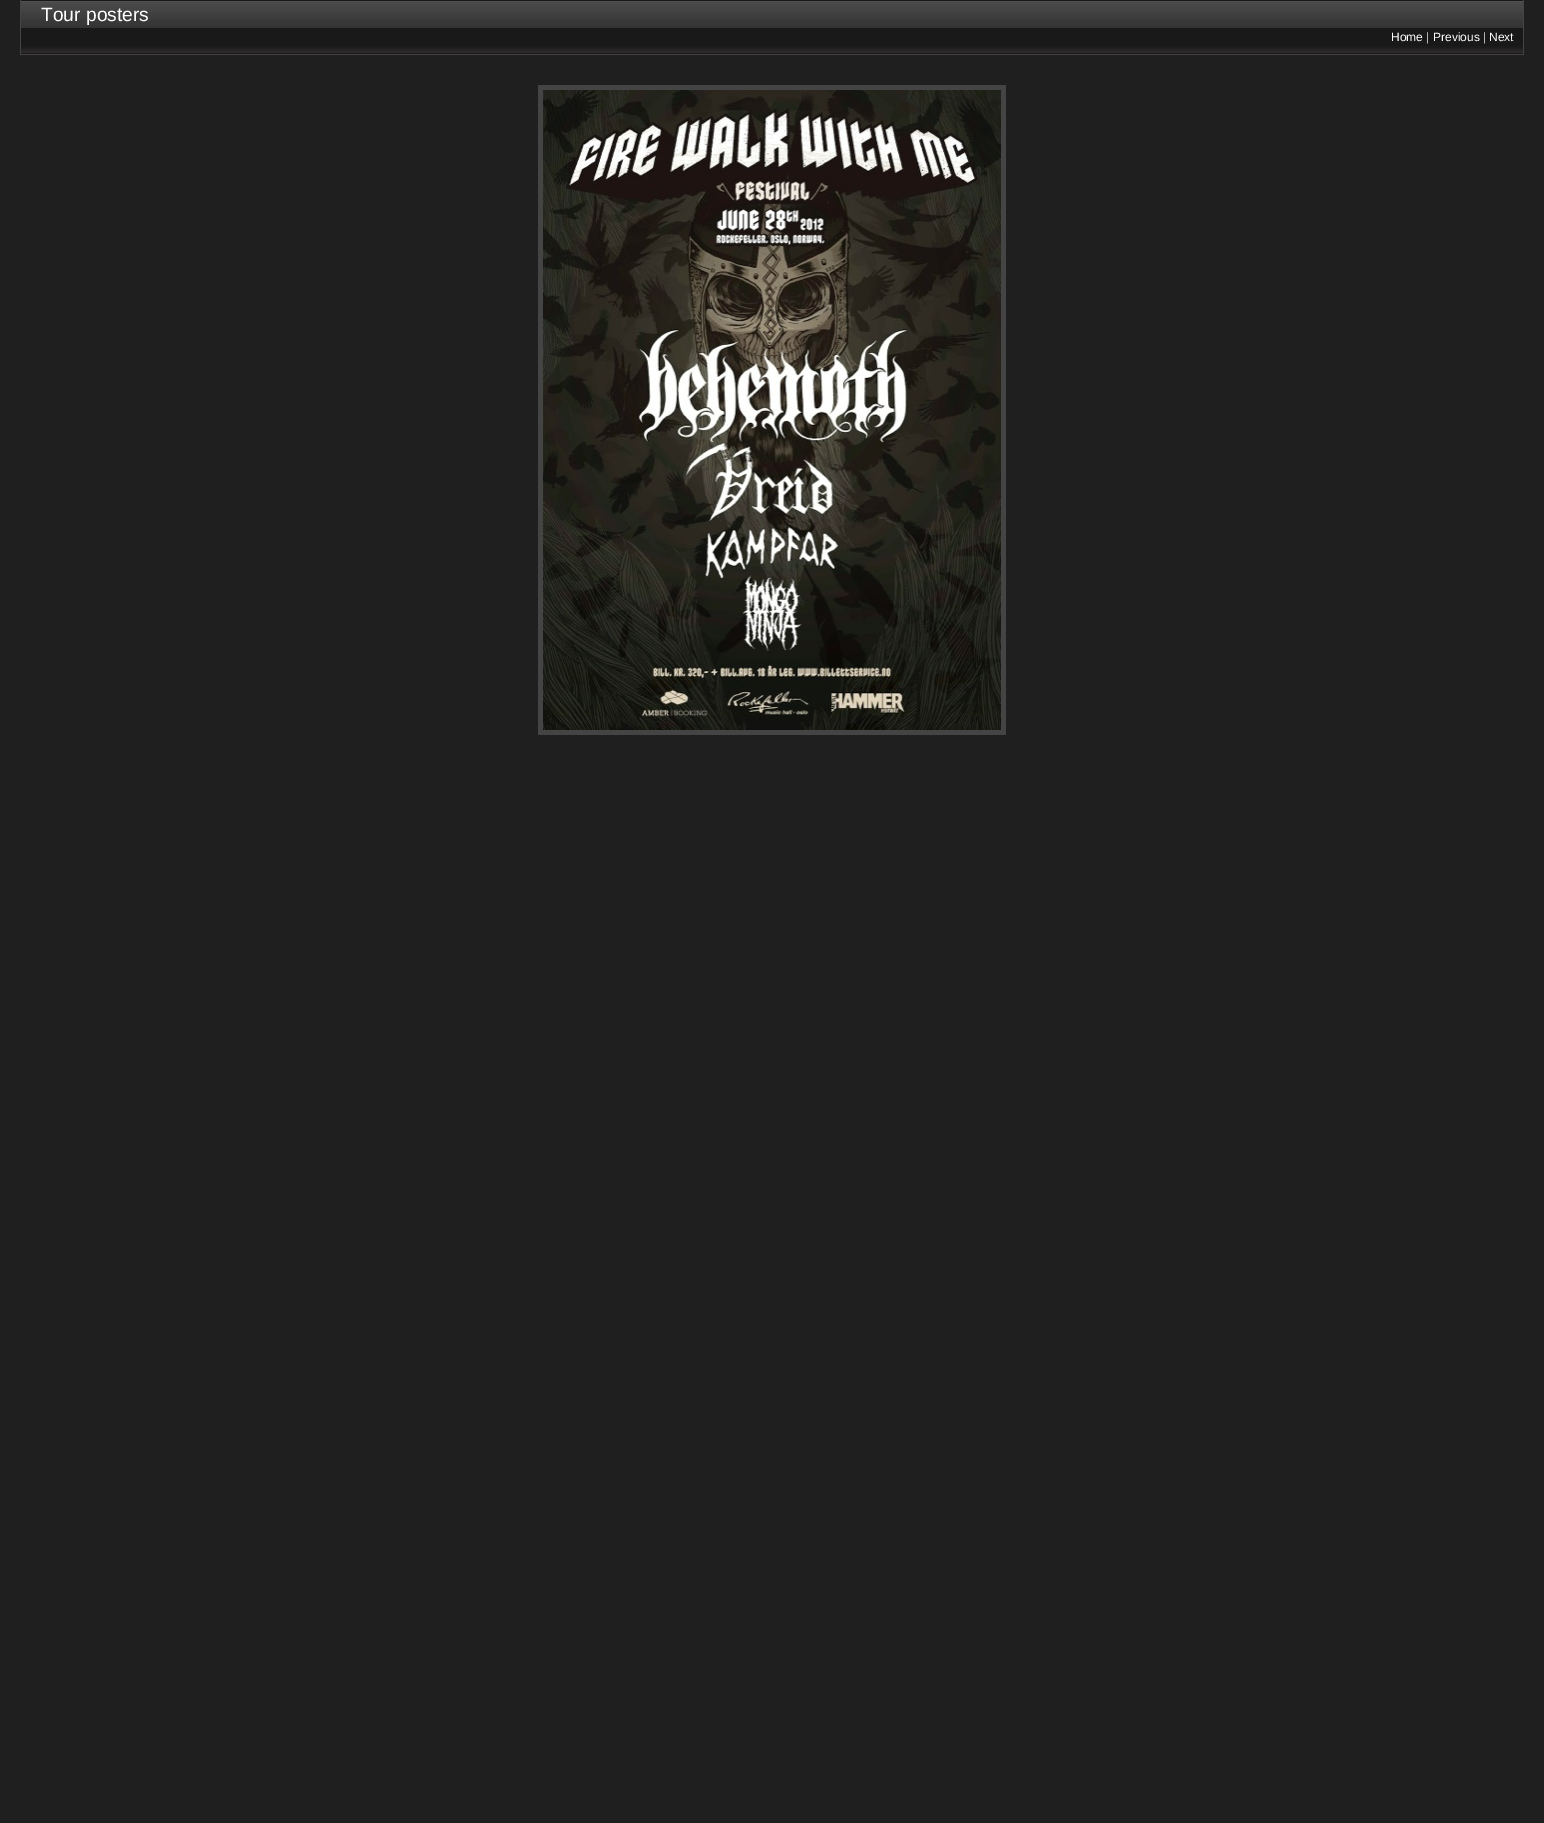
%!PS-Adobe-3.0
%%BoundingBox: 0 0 1544 1823
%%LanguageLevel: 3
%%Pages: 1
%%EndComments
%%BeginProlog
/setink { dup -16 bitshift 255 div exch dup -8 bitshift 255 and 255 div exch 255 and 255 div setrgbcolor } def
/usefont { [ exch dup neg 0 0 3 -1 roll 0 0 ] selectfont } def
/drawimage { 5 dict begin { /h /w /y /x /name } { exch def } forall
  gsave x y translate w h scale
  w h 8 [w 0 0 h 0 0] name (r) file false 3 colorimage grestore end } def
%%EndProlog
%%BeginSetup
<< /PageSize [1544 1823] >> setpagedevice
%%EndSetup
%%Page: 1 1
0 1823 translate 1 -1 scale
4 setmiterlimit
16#1F1F1F setink
0 0 1544 1823 rectfill
(img1.raw) 21 0 1502 54 drawimage
[
    [1523 0 1 55 16#444444]
    [20 54 1504 1 16#444444]
    [20 0 1 55 16#444444]
] { aload pop setink rectfill } forall
/LiberationSans-Regular 19.25 usefont
16#FFFFFF setink
41 21 moveto (Tour posters) show
/LiberationSans-Regular 12 usefont
1391 41 moveto (Home) show
16#B3B3B3 setink
1426 41 moveto (|) show
16#FFFFFF setink
1433 41 moveto (Previous) show
16#B3B3B3 setink
1483 41 moveto (|) show
16#FFFFFF setink
1489 41 moveto (Next) show
16#444444 setink
538 85 468 650 rectfill
(img2.raw) 543 90 458 640 drawimage
showpage
%%EOF
